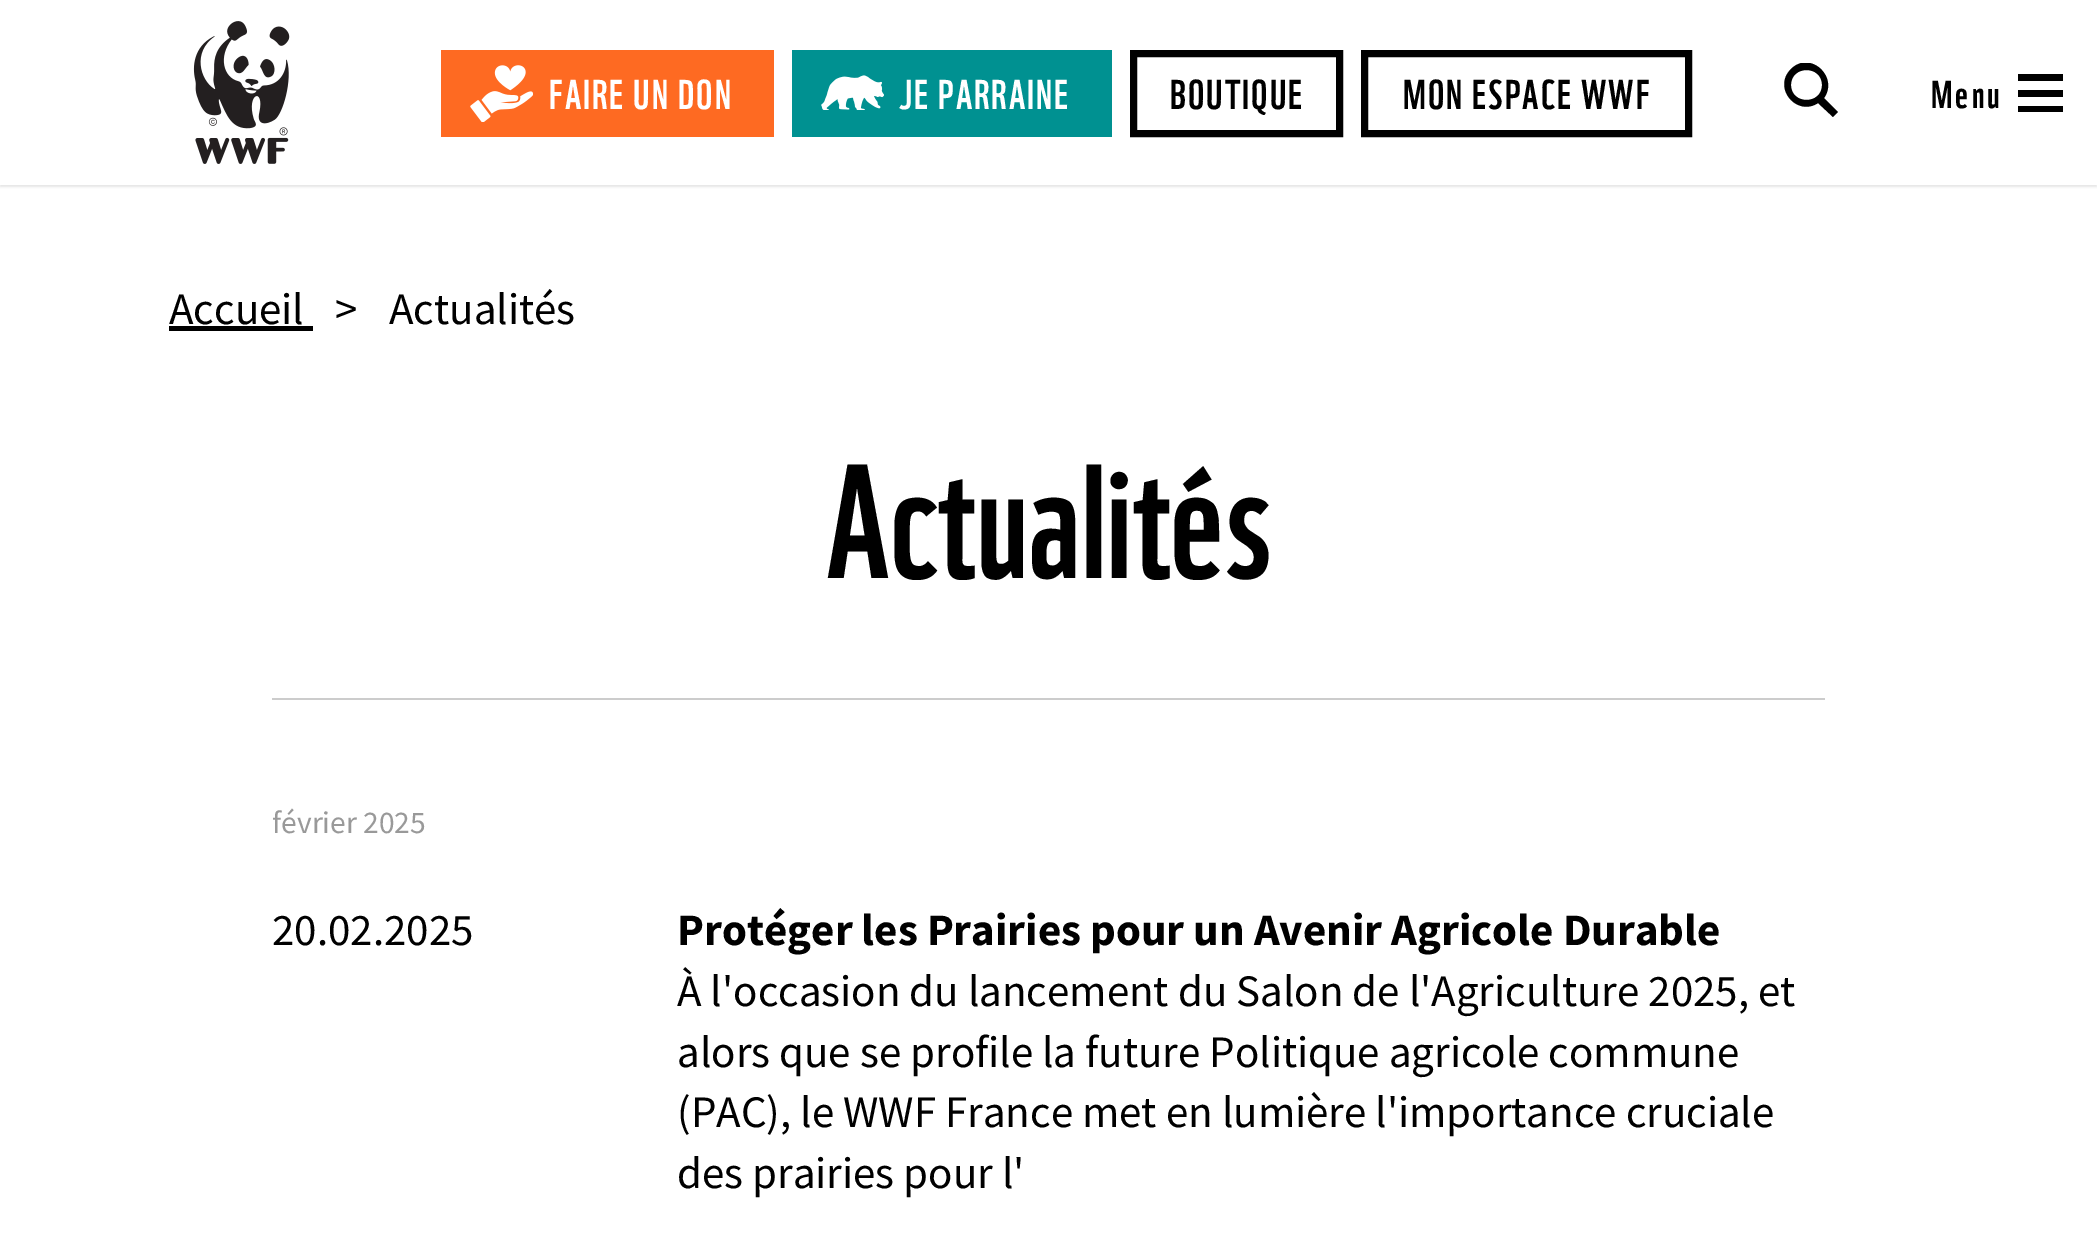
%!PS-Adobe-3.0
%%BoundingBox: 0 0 2097 1249
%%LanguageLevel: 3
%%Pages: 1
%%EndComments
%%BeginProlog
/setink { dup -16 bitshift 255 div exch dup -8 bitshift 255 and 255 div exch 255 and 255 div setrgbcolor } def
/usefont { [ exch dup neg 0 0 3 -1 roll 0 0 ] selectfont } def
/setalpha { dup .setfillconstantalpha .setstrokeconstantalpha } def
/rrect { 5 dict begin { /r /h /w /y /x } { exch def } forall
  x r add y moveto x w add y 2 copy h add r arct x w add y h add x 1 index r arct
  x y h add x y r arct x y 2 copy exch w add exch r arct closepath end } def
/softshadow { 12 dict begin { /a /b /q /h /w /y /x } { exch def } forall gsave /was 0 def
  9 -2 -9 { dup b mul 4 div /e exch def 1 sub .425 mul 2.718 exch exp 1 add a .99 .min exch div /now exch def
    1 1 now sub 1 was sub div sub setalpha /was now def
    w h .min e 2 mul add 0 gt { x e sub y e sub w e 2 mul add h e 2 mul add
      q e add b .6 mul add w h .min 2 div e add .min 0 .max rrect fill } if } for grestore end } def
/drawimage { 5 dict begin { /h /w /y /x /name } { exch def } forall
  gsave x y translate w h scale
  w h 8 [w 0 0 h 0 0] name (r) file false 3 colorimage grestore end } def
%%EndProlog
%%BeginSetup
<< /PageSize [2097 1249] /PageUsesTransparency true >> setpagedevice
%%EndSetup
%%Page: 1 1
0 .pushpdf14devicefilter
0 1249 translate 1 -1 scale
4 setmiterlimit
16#FFFFFF setink
0 0 2097 1249 rectfill
gsave
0 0 moveto 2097 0 lineto 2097 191 lineto 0 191 lineto closepath 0 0 moveto 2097 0 lineto 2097 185 lineto 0 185 lineto closepath eoclip newpath
16#000000 setink
0 2 2097 185 0 1 0.1 softshadow
grestore
(img1.raw) 193 21 97 143 drawimage
16#FE6A22 setink
441 50 333 87 rectfill
(img2.raw) 470 65 63 57 drawimage
/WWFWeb-Regular 40.5 usefont
16#FFFFFF setink
549 109 moveto 2 0 (FAIRE UN DON) ashow
16#009191 setink
792 50 320 87 rectfill
(img3.raw) 821 75 63 35 drawimage
16#FFFFFF setink
899 109 moveto 2 0 (JE PARRAINE) ashow
16#000000 setink
7 setlinewidth
1133.5 53.5 206 80 rectstroke
1170 109 moveto 2 0 (BOUTIQUE) ashow
1364.5 53.5 324 80 rectstroke
1403 109 moveto 2 0 (MON ESPACE WWF) ashow
gsave
1784 63 54 54 rectclip
1838 112 moveto 1824 98 lineto 1839 77 1810 50 1791 69 curveto 1772 88 1797 117 1818 103 curveto 1833 117 lineto closepath 1791 85 moveto 1791 65 1822 65 1822 85 curveto 1822 105 1791 105 1791 85 curveto closepath eofill
grestore
2018 74 moveto 2063 74 lineto 2063 81 lineto 2018 81 lineto closepath 2018 90 moveto 2063 90 lineto 2063 97 lineto 2018 97 lineto closepath 2018 106 moveto 2063 106 lineto 2063 112 lineto 2018 112 lineto closepath eofill
/WWFWeb-Regular 38 usefont
1931 108 moveto 3 0 (Menu) ashow
/SourceSansPro-Regular 45 usefont
169 324 moveto (Accueil) show
169 326 144 5 rectfill
335 324 moveto (>) show
389 324 moveto (Actualités) show
/WWFWeb-Regular 157.5 usefont
826 578 moveto (Actualités) show
16#CCCCCC setink
272 698 1553 2 rectfill
/SourceSansPro-Regular 31.5 usefont
16#999999 setink
272 833 moveto (février 2025) show
/SourceSansPro-Regular 45 usefont
16#000000 setink
272 945 moveto (20.02.2025) show
/SourceSansPro-Bold 45 usefont
677 945 moveto (Protéger les Prairies pour un Avenir Agricole Durable) show
/SourceSansPro-Regular 45 usefont
[
    [(À l'occasion du lancement du Salon de l'Agriculture 2025, et) 677 1006]
    [(alors que se profile la future Politique agricole commune) 677 1067]
    [(\(PAC\), le WWF France met en lumière l'importance cruciale) 677 1127]
    [(des prairies pour l') 677 1188]
] { aload pop moveto show } forall
.poppdf14devicefilter showpage
%%EOF
